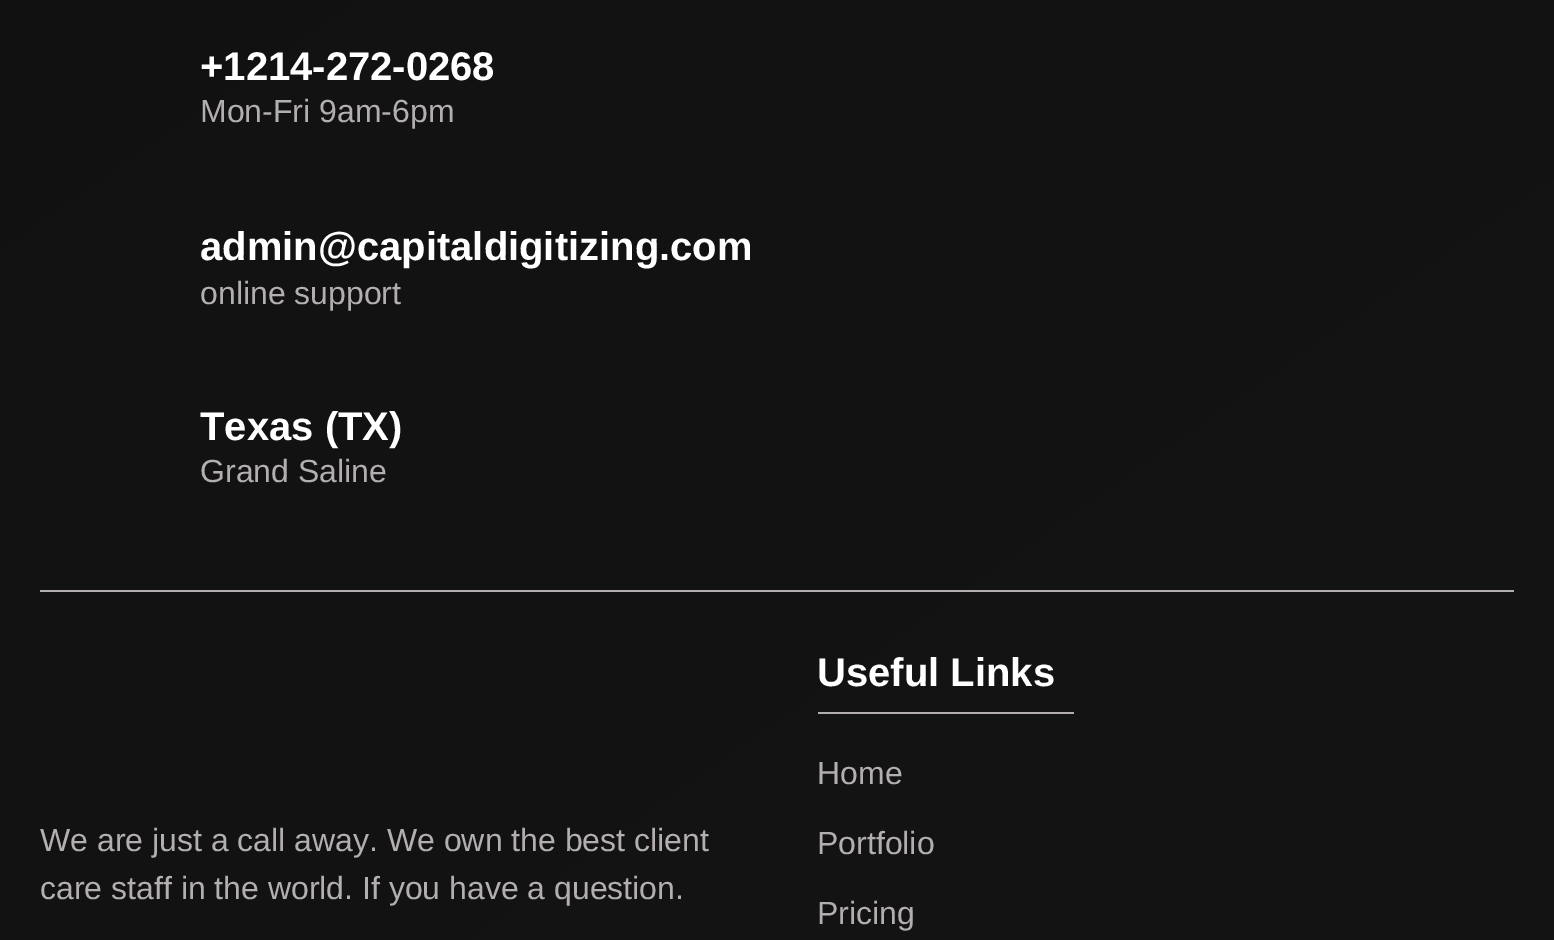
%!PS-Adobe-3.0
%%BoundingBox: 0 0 1554 940
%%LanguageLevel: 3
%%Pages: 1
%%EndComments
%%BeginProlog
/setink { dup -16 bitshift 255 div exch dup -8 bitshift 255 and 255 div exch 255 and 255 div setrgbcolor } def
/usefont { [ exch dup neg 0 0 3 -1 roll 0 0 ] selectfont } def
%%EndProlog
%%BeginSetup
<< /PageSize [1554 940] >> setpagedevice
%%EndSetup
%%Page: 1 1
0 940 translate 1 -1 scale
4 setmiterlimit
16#FFFFFF setink
0 0 1554 940 rectfill
gsave 0 0 moveto 1554 0 lineto 1554 940 lineto 0 940 lineto closepath clip newpath
<< /ShadingType 2 /ColorSpace /DeviceRGB /Coords [106 -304 1448 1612] /Extend [true true] /Function << /FunctionType 2 /Domain [0 1] /C0 [0.071 0.067 0.067] /C1 [0.082 0.078 0.078] /N 1 >> >> shfill grestore
16#B4AFAF setink
40 590 1474 2 rectfill
/LiberationSans-Bold 40 usefont
16#FFFFFF setink
200 80 moveto (+1214-272-0268) show
/LiberationSans-Regular 32 usefont
16#B4AFAF setink
200 122 moveto (Mon-Fri 9am-6pm) show
/LiberationSans-Bold 40 usefont
16#FFFFFF setink
200 260 moveto (admin@capitaldigitizing.com) show
/LiberationSans-Regular 32 usefont
16#B4AFAF setink
200 304 moveto (online support) show
/LiberationSans-Bold 40 usefont
16#FFFFFF setink
200 440 moveto (Texas \(TX\)) show
/LiberationSans-Regular 32 usefont
16#B4AFAF setink
[
    [(Grand Saline) 200 482]
    [(We are just a call away. We own the best client) 40 851]
    [(care staff in the world. If you have a question.) 40 899]
] { aload pop moveto show } forall
818 712 256 2 rectfill
/LiberationSans-Bold 40 usefont
16#FFFFFF setink
817 686 moveto (Useful Links) show
/LiberationSans-Regular 32 usefont
16#B4AFAF setink
[
    [(Home) 817 784]
    [(Portfolio) 817 854]
    [(Pricing) 817 924]
] { aload pop moveto show } forall
showpage
%%EOF
